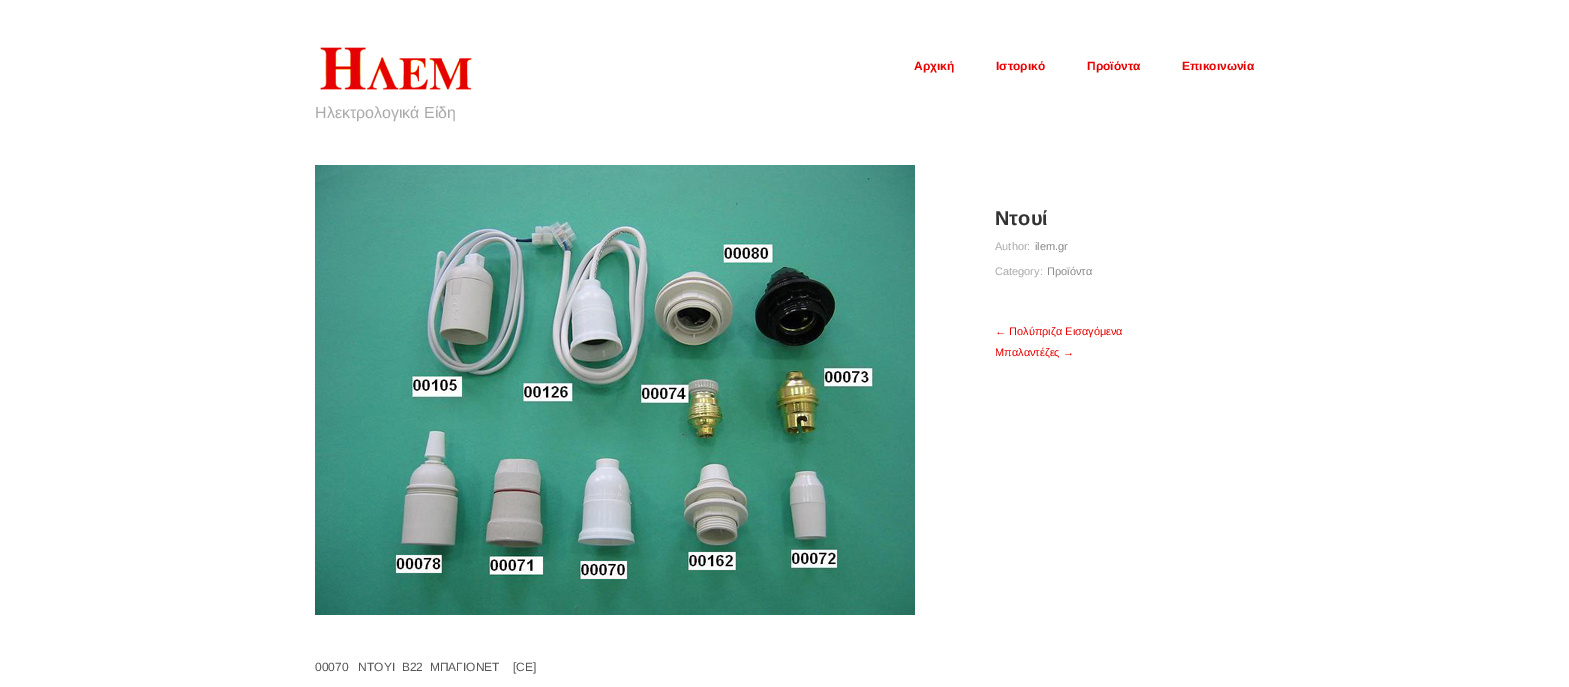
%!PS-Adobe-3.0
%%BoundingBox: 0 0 1569 687
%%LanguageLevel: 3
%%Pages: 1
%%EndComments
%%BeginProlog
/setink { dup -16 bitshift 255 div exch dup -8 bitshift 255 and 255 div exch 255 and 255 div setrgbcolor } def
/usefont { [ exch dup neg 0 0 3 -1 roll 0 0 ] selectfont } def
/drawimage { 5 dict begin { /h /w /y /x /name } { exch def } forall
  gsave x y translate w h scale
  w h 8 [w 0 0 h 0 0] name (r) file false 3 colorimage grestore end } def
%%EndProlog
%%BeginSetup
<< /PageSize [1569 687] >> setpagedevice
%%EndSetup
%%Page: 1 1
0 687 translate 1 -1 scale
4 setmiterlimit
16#FFFFFF setink
0 0 1569 687 rectfill
/LiberationSans-Bold 12 usefont
16#E80000 setink
[
    [(Αρχική) 914 70]
    [(Ιστορικό) 996 70]
    [(Προϊόντα) 1087 70]
    [(Επικοινωνία) 1182 70]
] { aload pop moveto show } forall
(img1.raw) 320 47 153 43 drawimage
/LiberationSans-Regular 16 usefont
16#AAAAAA setink
315 118 moveto (Ηλεκτρολογικά Είδη) show
(img2.raw) 315 165 600 450 drawimage
/LiberationSans-Bold 20 usefont
16#333333 setink
995 225 moveto (Ντουί) show
/LiberationSans-Regular 11 usefont
16#AAAAAA setink
995 250 moveto (Author:) show
16#888888 setink
1035 250 moveto (ilem.gr) show
16#AAAAAA setink
995 275 moveto (Category:) show
16#888888 setink
1047 275 moveto (Προϊόντα) show
16#E80000 setink
995 335 moveto (← Πολύπριζα Εισαγόμενα) show
995 356 moveto (Μπαλαντέζες →) show
/LiberationSans-Regular 12 usefont
16#555555 setink
315 671 moveto (00070   ΝΤΟΥΙ  Β22  ΜΠΑΓΙΟΝΕΤ    [CE]) show
showpage
%%EOF
